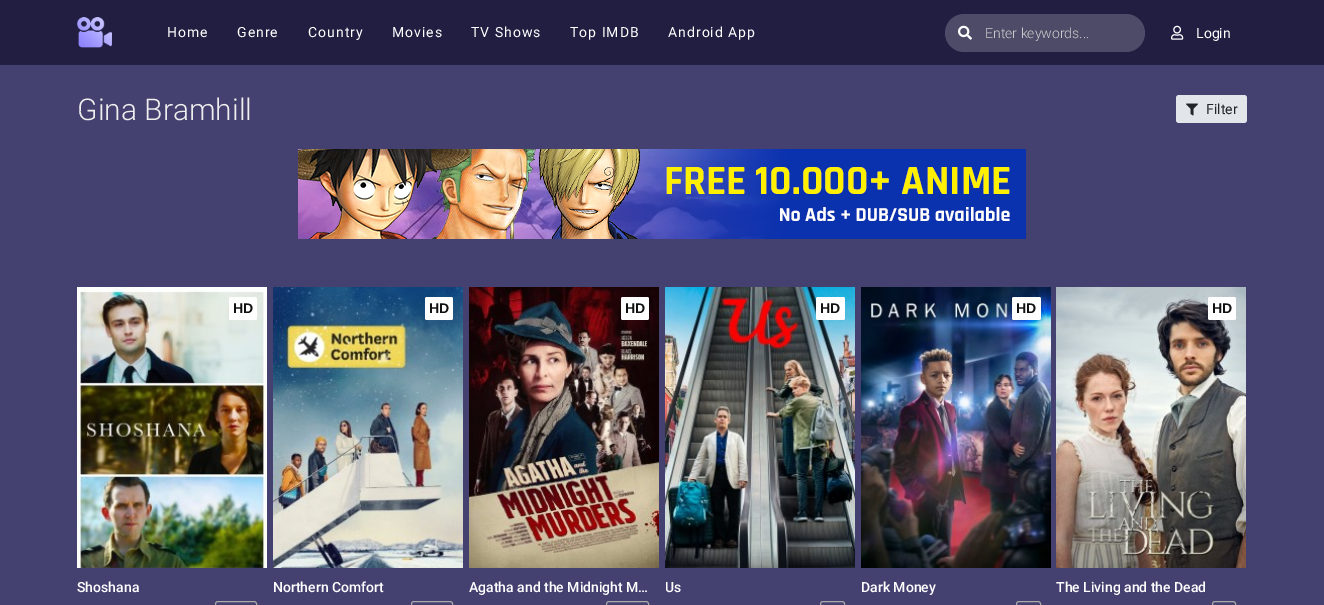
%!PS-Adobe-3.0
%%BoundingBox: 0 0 1324 605
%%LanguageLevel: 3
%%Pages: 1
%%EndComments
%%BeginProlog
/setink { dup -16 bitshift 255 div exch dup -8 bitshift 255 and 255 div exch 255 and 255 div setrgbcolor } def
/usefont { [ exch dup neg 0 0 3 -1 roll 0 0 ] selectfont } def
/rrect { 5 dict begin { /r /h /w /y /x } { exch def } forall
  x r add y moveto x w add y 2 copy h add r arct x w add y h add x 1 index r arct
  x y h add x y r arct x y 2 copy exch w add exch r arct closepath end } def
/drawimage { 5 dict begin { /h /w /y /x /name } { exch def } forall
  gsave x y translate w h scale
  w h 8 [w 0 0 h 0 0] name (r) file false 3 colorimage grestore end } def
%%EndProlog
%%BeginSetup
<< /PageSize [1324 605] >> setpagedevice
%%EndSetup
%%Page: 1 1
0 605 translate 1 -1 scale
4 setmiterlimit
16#44406F setink
0 0 1324 605 rectfill
16#211E42 setink
0 0 1324 65 rectfill
(img1.raw) 77 17 35 31 drawimage
/Roboto-Regular 14 usefont
16#FFFFFF setink
167 37 moveto 1 0 (Home) ashow
237 37 moveto 1 0 (Genre) ashow
308 37 moveto 1 0 (Country) ashow
392 37 moveto 1 0 (Movies) ashow
471 37 moveto 1 0 (TV Shows) ashow
570 37 moveto 1 0 (Top IMDB) ashow
668 37 moveto 1 0 (Android App) ashow
16#4D4B68 setink
945 14 200 38 19 rrect fill
(img2.raw) 958 25 14 15 drawimage
/Roboto-Light 14 usefont
16#CCCCCC setink
985 38 moveto (Enter keywords...) show
(img3.raw) 1171 25 13 15 drawimage
/Roboto-Regular 14 usefont
16#FFFFFF setink
1196 38 moveto (Login) show
/Roboto-Light 30 usefont
16#EEEEEE setink
77 120 moveto (Gina Bramhill) show
16#E2E6EA setink
1176 95 71 28 3 rrect fill
(img4.raw) 1186 103 12 13 drawimage
/Roboto-Regular 14 usefont
16#212529 setink
1206 114 moveto (Filter) show
(img5.raw) 298 149 728 90 drawimage
(img6.raw) 77 287 190 281 drawimage
16#FFFFFF setink
229 297 28 23 2 rrect fill
/LiberationSans-Bold 14 usefont
16#111111 setink
233 313 moveto (HD) show
/Roboto-Medium 14 usefont
16#FFFFFF setink
77 592 moveto (Shoshana) show
16#AAAAAA setink
215.5 601.5 41 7 2.5 rrect stroke
(img7.raw) 273 287 190 281 drawimage
16#FFFFFF setink
425 297 28 23 2 rrect fill
/LiberationSans-Bold 14 usefont
16#111111 setink
429 313 moveto (HD) show
/Roboto-Medium 14 usefont
16#FFFFFF setink
273 592 moveto (Northern Comfort) show
16#AAAAAA setink
411.5 601.5 41 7 2.5 rrect stroke
(img8.raw) 469 287 190 281 drawimage
16#FFFFFF setink
621 297 28 23 2 rrect fill
/LiberationSans-Bold 14 usefont
16#111111 setink
625 313 moveto (HD) show
/Roboto-Medium 14 usefont
16#FFFFFF setink
469 592 moveto (Agatha and the Midnight M…) show
16#AAAAAA setink
606.5 601.5 42 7 2.5 rrect stroke
(img9.raw) 665 287 190 281 drawimage
16#FFFFFF setink
816 297 29 23 2 rrect fill
/LiberationSans-Bold 14 usefont
16#111111 setink
820 313 moveto (HD) show
/Roboto-Medium 14 usefont
16#FFFFFF setink
665 592 moveto (Us) show
16#AAAAAA setink
820.5 601.5 24 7 2.5 rrect stroke
(img10.raw) 861 287 190 281 drawimage
16#FFFFFF setink
1012 297 29 23 2 rrect fill
/LiberationSans-Bold 14 usefont
16#111111 setink
1016 313 moveto (HD) show
/Roboto-Medium 14 usefont
16#FFFFFF setink
861 592 moveto (Dark Money) show
16#AAAAAA setink
1016.5 601.5 24 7 2.5 rrect stroke
(img11.raw) 1056 287 190 281 drawimage
16#FFFFFF setink
1208 297 28 23 2 rrect fill
/LiberationSans-Bold 14 usefont
16#111111 setink
1212 313 moveto (HD) show
/Roboto-Medium 14 usefont
16#FFFFFF setink
1056 592 moveto (The Living and the Dead) show
16#AAAAAA setink
1212.5 601.5 23 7 2.5 rrect stroke
showpage
%%EOF
